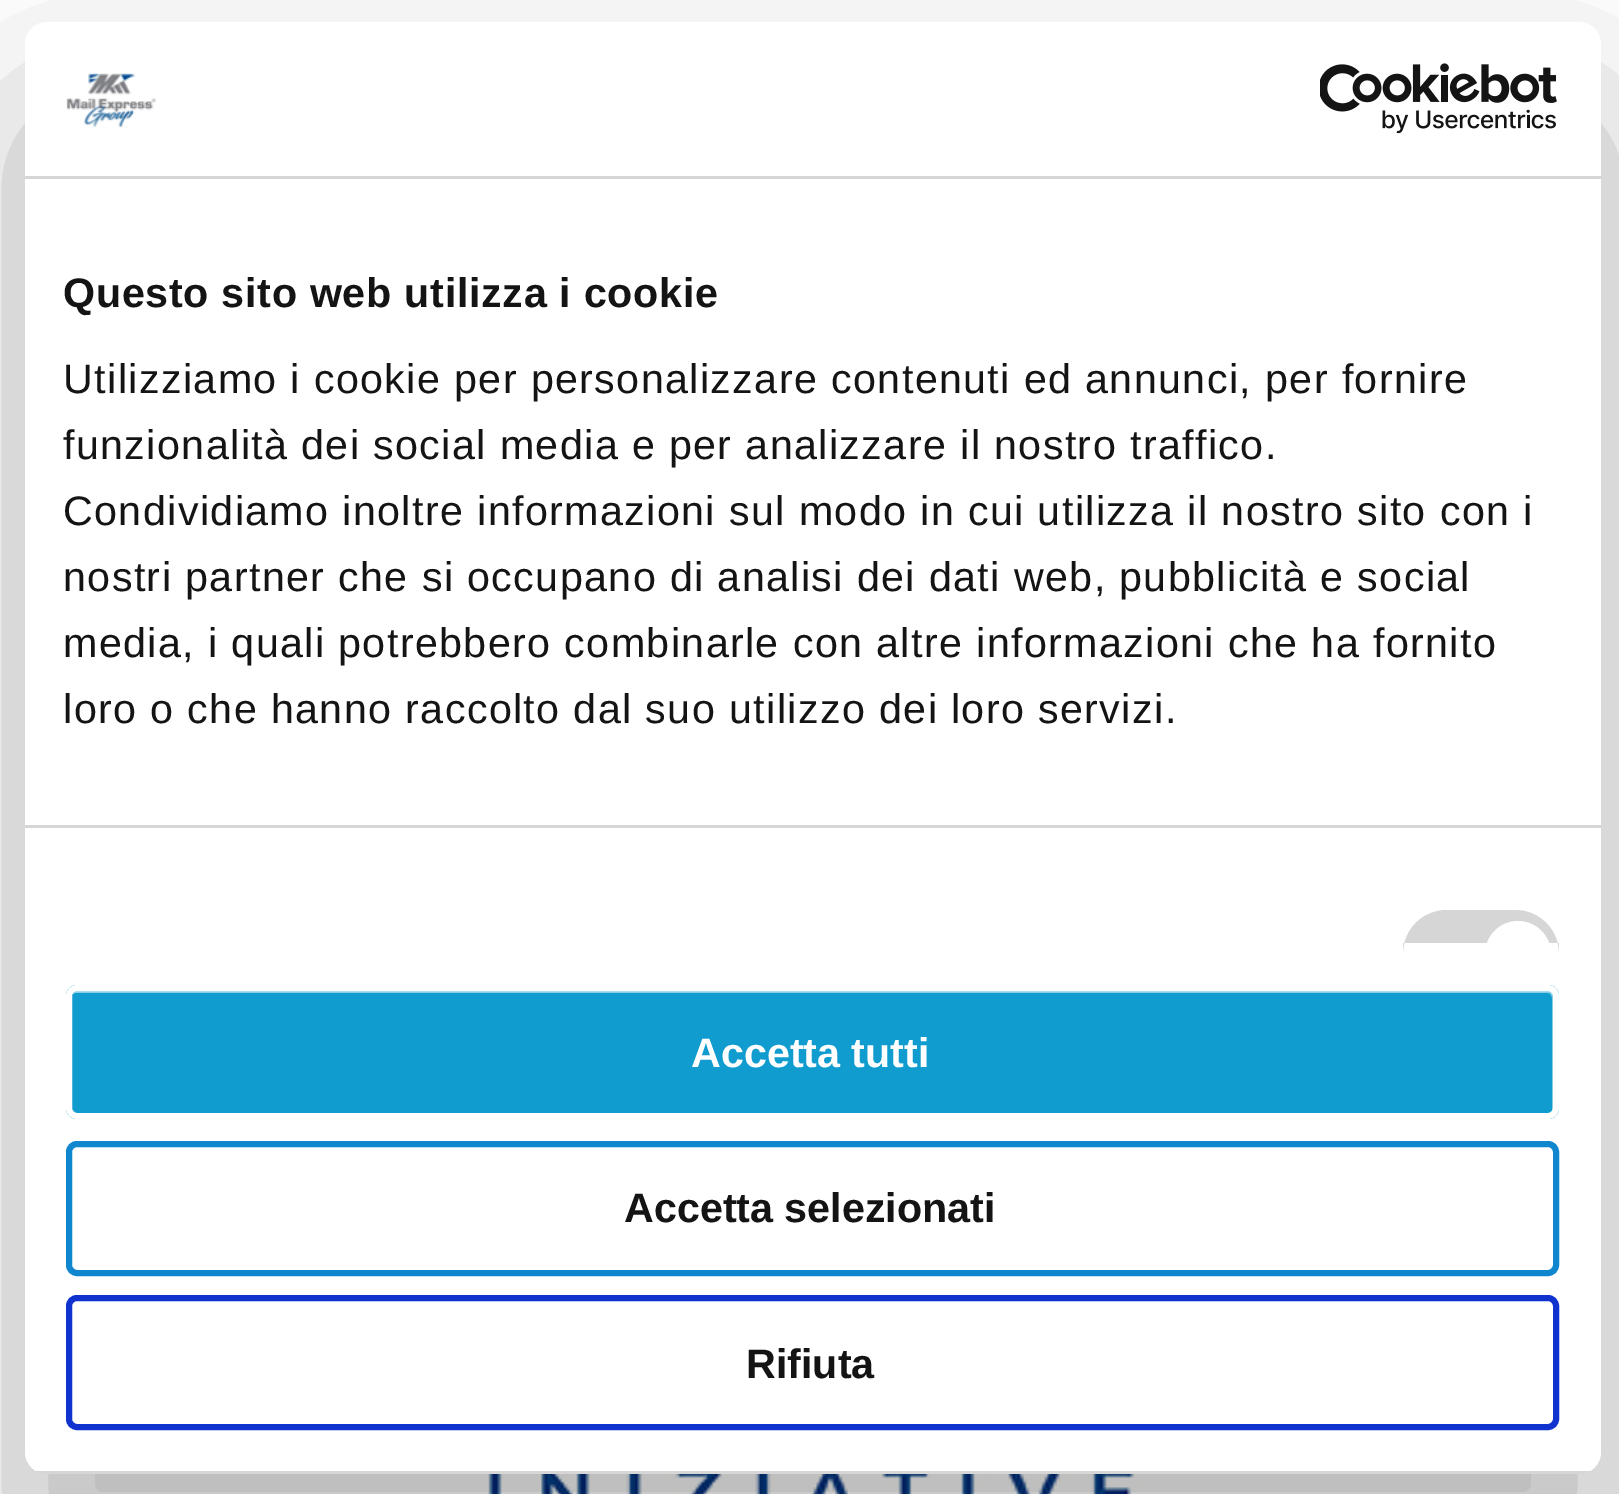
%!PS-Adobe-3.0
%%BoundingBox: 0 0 1619 1494
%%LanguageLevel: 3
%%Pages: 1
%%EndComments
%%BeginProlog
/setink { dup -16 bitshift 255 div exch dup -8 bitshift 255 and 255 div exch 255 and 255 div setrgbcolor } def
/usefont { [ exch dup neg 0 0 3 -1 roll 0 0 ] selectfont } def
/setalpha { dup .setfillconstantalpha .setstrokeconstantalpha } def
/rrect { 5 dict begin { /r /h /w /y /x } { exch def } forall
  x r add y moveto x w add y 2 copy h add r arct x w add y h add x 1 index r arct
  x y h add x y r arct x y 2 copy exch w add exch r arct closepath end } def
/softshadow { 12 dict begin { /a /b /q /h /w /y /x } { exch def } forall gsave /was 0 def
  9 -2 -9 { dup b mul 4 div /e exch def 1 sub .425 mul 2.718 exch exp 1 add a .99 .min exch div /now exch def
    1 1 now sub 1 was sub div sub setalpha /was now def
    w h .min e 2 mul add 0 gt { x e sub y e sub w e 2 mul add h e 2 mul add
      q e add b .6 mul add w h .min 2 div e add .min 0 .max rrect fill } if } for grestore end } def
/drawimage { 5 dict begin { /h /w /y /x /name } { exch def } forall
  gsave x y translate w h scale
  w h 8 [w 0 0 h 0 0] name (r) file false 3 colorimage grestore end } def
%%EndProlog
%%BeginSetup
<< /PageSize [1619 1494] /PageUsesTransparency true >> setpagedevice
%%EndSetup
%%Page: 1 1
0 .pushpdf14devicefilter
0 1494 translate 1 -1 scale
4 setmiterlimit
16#FFFFFF setink
0 0 1619 1494 rectfill
(img3.raw) 488 1474 658 20 drawimage
gsave
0 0 moveto 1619 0 lineto 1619 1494 lineto 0 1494 lineto closepath 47 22 moveto 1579 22 lineto 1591 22 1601 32 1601 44 curveto 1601 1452 lineto 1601 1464 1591 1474 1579 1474 curveto 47 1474 lineto 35 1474 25 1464 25 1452 curveto 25 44 lineto 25 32 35 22 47 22 curveto closepath eoclip newpath
16#000000 setink
25 110 1576 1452 22 93.5 0.3 softshadow
grestore
25 22 1576 1452 22 rrect fill
16#D6D6D6 setink
25 176 1576 3 rectfill
(img1.raw) 66 73 91 55 drawimage
(img2.raw) 1320 63 237 71 drawimage
25 825 1576 3 rectfill
/LiberationSans-Bold 41.25 usefont
16#141414 setink
63 307 moveto 0.7 0 (Questo sito web utilizza i cookie) ashow
/LiberationSans-Regular 41.25 usefont
63 393 moveto 1.38 0 (Utilizziamo i cookie per personalizzare contenuti ed annunci, per fornire) ashow
63 459 moveto 1.38 0 (funzionalità dei social media e per analizzare il nostro traffico.) ashow
63 525 moveto 1.38 0 (Condividiamo inoltre informazioni sul modo in cui utilizza il nostro sito con i) ashow
63 591 moveto 1.38 0 (nostri partner che si occupano di analisi dei dati web, pubblicità e social) ashow
63 657 moveto 1.38 0 (media, i quali potrebbero combinarle con altre informazioni che ha fornito) ashow
63 723 moveto 1.38 0 (loro o che hanno raccolto dal suo utilizzo dei loro servizi.) ashow
16#D6D6D6 setink
1447 910 moveto 1515 910 lineto 1539.5 910 1559 929.5 1559 954 curveto 1559 943 lineto 1403 943 lineto 1403 954 lineto 1403 929.5 1422.5 910 1447 910 curveto closepath fill
16#FFFFFF setink
1518 921 moveto 1536 921 1551 936 1551 954 curveto 1551 943 lineto 1485 943 lineto 1485 954 lineto 1485 936 1500 921 1518 921 curveto closepath fill
gsave
25 22 1576 1452 22 rrect clip newpath
16#D6D6D6 setink
36 1471 1554 3 rectfill
grestore
16#109CCF setink
66 985 1493 134 11 rrect fill
16#88CEE7 setink
75 993 moveto 1548 993 lineto 1550 993 1552 995 1552 998 curveto 1552 1113 lineto 1553 1111 1554 1110 1554 1108 curveto 1554 996 lineto 1554 993 1551 990 1548 990 curveto 78 990 lineto 76 990 73 991 73 994 curveto closepath fill
16#FFFFFF setink
6 setlinewidth
69 988 1487 128 8 rrect stroke
/LiberationSans-Bold 41.25 usefont
691 1067 moveto (Accetta tutti) show
16#1086CF setink
69 1144 1487 129 8 rrect stroke
16#141414 setink
624 1222 moveto (Accetta selezionati) show
16#1032CF setink
69 1298 1487 129 8 rrect stroke
16#141414 setink
746 1378 moveto (Rifiuta) show
.poppdf14devicefilter showpage
%%EOF
